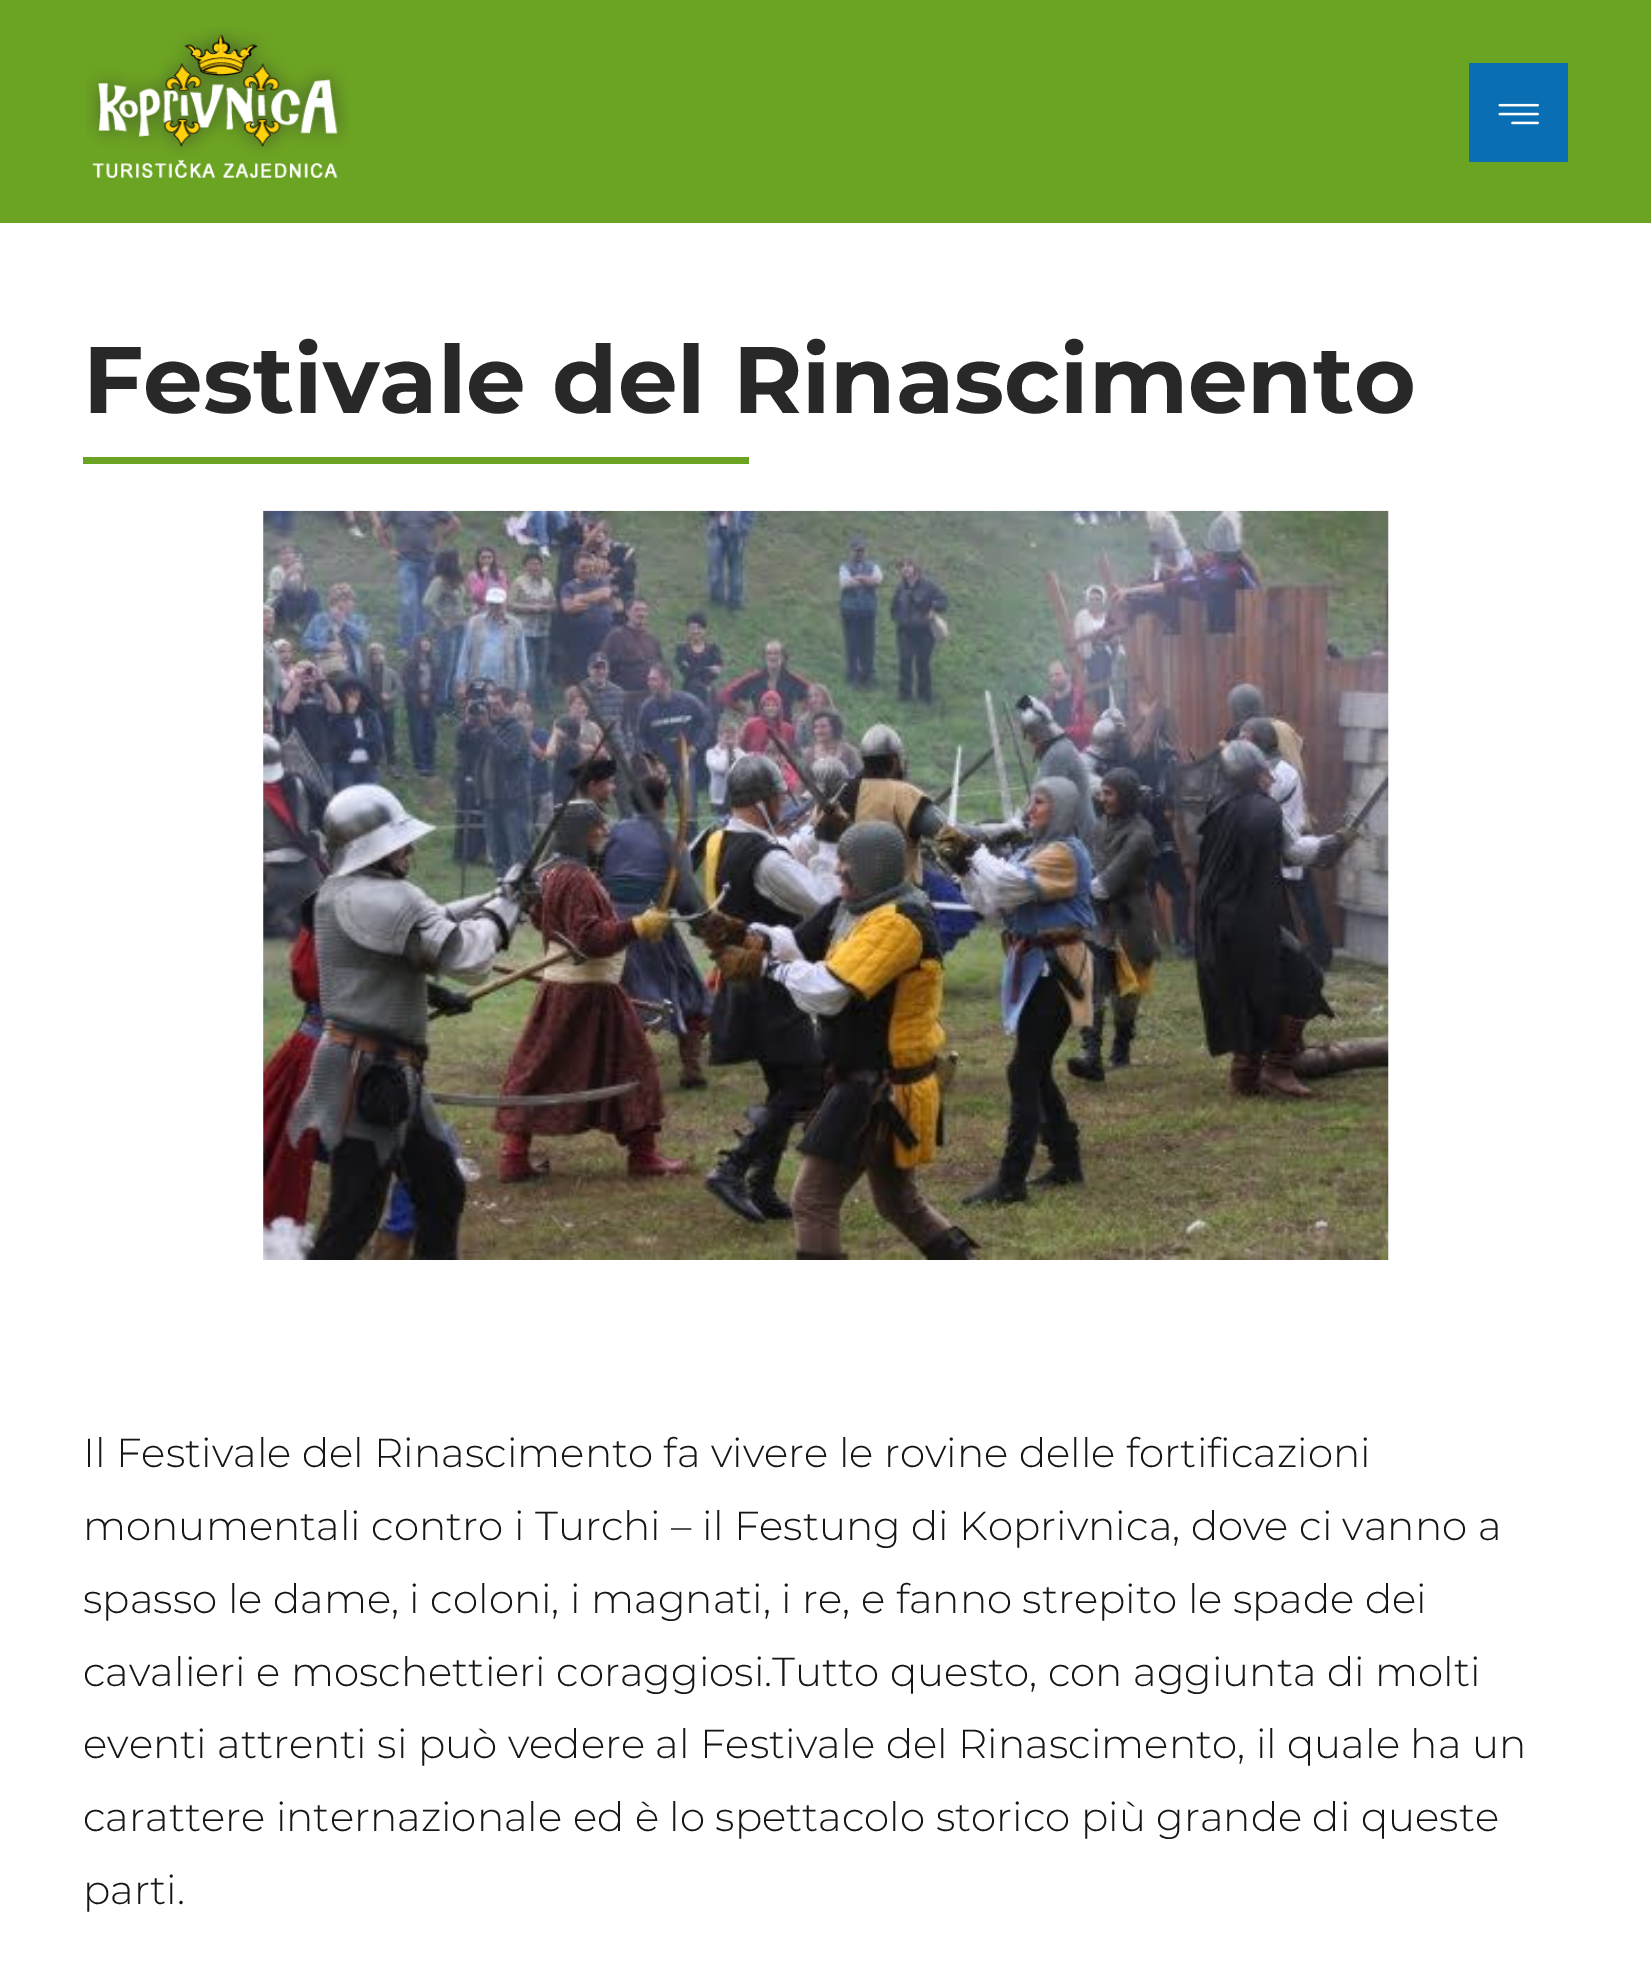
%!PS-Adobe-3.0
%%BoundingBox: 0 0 1651 1975
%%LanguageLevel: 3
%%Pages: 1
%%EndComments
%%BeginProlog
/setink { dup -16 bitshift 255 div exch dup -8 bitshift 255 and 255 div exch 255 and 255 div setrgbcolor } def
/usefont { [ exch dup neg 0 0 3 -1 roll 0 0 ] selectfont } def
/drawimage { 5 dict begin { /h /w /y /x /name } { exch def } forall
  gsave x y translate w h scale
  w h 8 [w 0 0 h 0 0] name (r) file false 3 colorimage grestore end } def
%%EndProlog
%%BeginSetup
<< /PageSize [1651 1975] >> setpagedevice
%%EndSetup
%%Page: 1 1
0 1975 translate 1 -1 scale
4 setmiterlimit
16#FFFFFF setink
0 0 1651 1975 rectfill
16#6BA322 setink
0 0 1651 223 rectfill
(img1.raw) 86 27 264 151 drawimage
16#096EB3 setink
1469 63 99 99 rectfill
(img2.raw) 1498 103 41 22 drawimage
/Montserrat-Bold 94.5 usefont
16#282828 setink
83 413 moveto (Festivale del Rinascimento) show
16#6BA322 setink
83 457 666 7 rectfill
(img3.raw) 263 510 1126 750 drawimage
/Montserrat-Light 40.5 usefont
16#161616 setink
[
    [(Il Festivale del Rinascimento fa vivere le rovine delle fortificazioni) 83 1467]
    [(monumentali contro i Turchi – il Festung di Koprivnica, dove ci vanno a) 83 1540]
    [(spasso le dame, i coloni, i magnati, i re, e fanno strepito le spade dei) 83 1613]
    [(cavalieri e moschettieri coraggiosi.Tutto questo, con aggiunta di molti) 83 1686]
    [(eventi attrenti si può vedere al Festivale del Rinascimento, il quale ha un) 83 1758]
    [(carattere internazionale ed è lo spettacolo storico più grande di queste) 83 1831]
    [(parti.) 83 1904]
] { aload pop moveto show } forall
showpage
%%EOF
